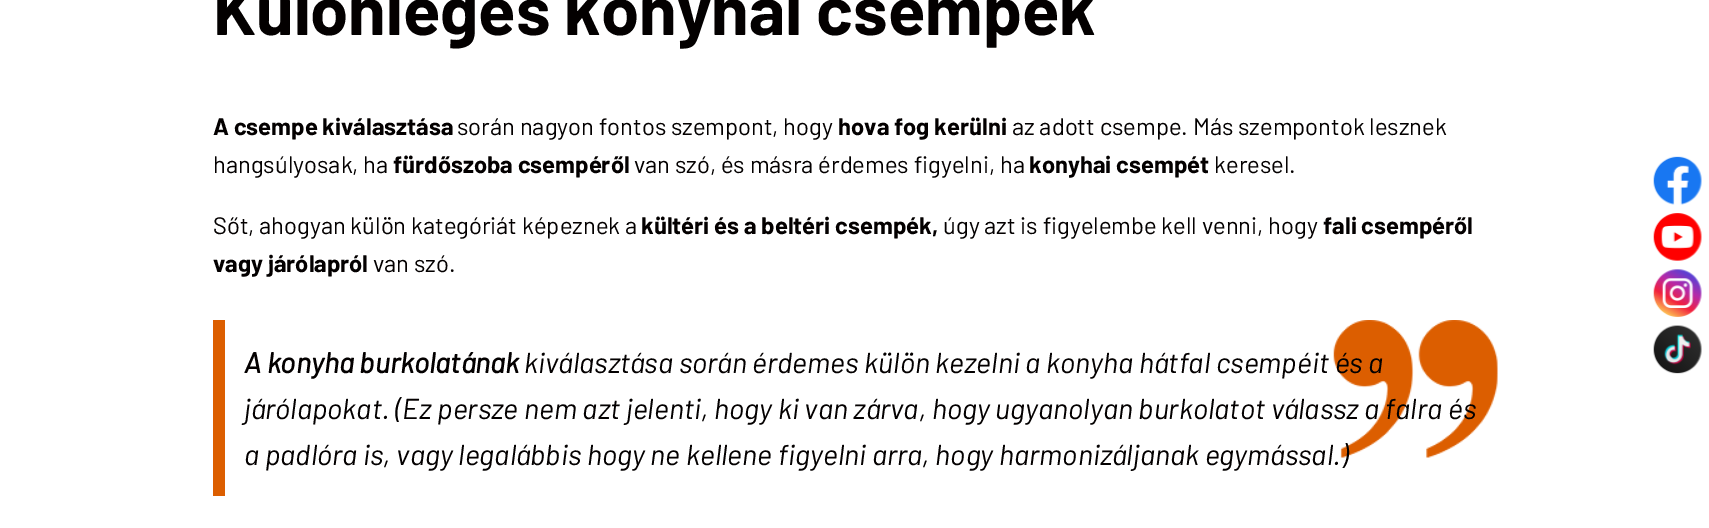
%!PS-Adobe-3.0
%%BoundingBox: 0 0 1709 528
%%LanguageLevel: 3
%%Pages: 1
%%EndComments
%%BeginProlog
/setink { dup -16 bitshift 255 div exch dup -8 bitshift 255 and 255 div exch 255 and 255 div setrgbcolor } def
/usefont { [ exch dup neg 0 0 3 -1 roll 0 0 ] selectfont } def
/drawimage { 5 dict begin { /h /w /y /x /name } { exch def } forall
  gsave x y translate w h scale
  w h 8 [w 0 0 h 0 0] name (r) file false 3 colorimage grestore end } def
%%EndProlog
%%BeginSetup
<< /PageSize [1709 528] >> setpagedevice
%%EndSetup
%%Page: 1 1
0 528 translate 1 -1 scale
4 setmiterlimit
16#FFFFFF setink
0 0 1709 528 rectfill
/Barlow-Bold 68.75 usefont
16#030000 setink
213 35 moveto (Különleges konyhai csempék) show
/Barlow-Bold 23.75 usefont
213 135 moveto (A csempe kiválasztása) show
/Barlow-Regular 23.75 usefont
457 135 moveto (során nagyon fontos szempont, hogy) show
/Barlow-Bold 23.75 usefont
838 135 moveto (hova fog kerülni) show
/Barlow-Regular 23.75 usefont
1012 135 moveto (az adott csempe. Más szempontok lesznek) show
213 173 moveto (hangsúlyosak, ha) show
/Barlow-Bold 23.75 usefont
393 173 moveto (fürdőszoba csempéről) show
/Barlow-Regular 23.75 usefont
634 173 moveto (van szó, és másra érdemes figyelni, ha) show
/Barlow-Bold 23.75 usefont
1029 173 moveto (konyhai csempét) show
/Barlow-Regular 23.75 usefont
1214 173 moveto (keresel.) show
213 234 moveto (Sőt, ahogyan külön kategóriát képeznek a) show
/Barlow-Bold 23.75 usefont
641 234 moveto (kültéri és a beltéri csempék,) show
/Barlow-Regular 23.75 usefont
943 234 moveto (úgy azt is figyelembe kell venni, hogy) show
/Barlow-Bold 23.75 usefont
1323 234 moveto (fali csempéről) show
213 272 moveto (vagy járólapról) show
/Barlow-Regular 23.75 usefont
373 272 moveto (van szó.) show
(img1.raw) 1333 320 165 138 drawimage
16#DC5E00 setink
213 320 12 176 rectfill
/Barlow-BoldItalic 28.75 usefont
16#030000 setink
244 373 moveto (A konyha burkolatának) show
/Barlow-Italic 28.75 usefont
[
    [(kiválasztása során érdemes külön kezelni a konyha hátfal csempéit és a) 524 373]
    [(járólapokat. \(Ez persze nem azt jelenti, hogy ki van zárva, hogy ugyanolyan burkolatot válassz a falra és) 244 419]
    [(a padlóra is, vagy legalábbis hogy ne kellene figyelni arra, hogy harmonizáljanak egymással.\)) 244 465]
] { aload pop moveto show } forall
(img2.raw) 1653 156 49 49 drawimage
(img3.raw) 1653 213 49 48 drawimage
(img4.raw) 1653 269 49 48 drawimage
(img5.raw) 1653 325 49 49 drawimage
showpage
%%EOF
